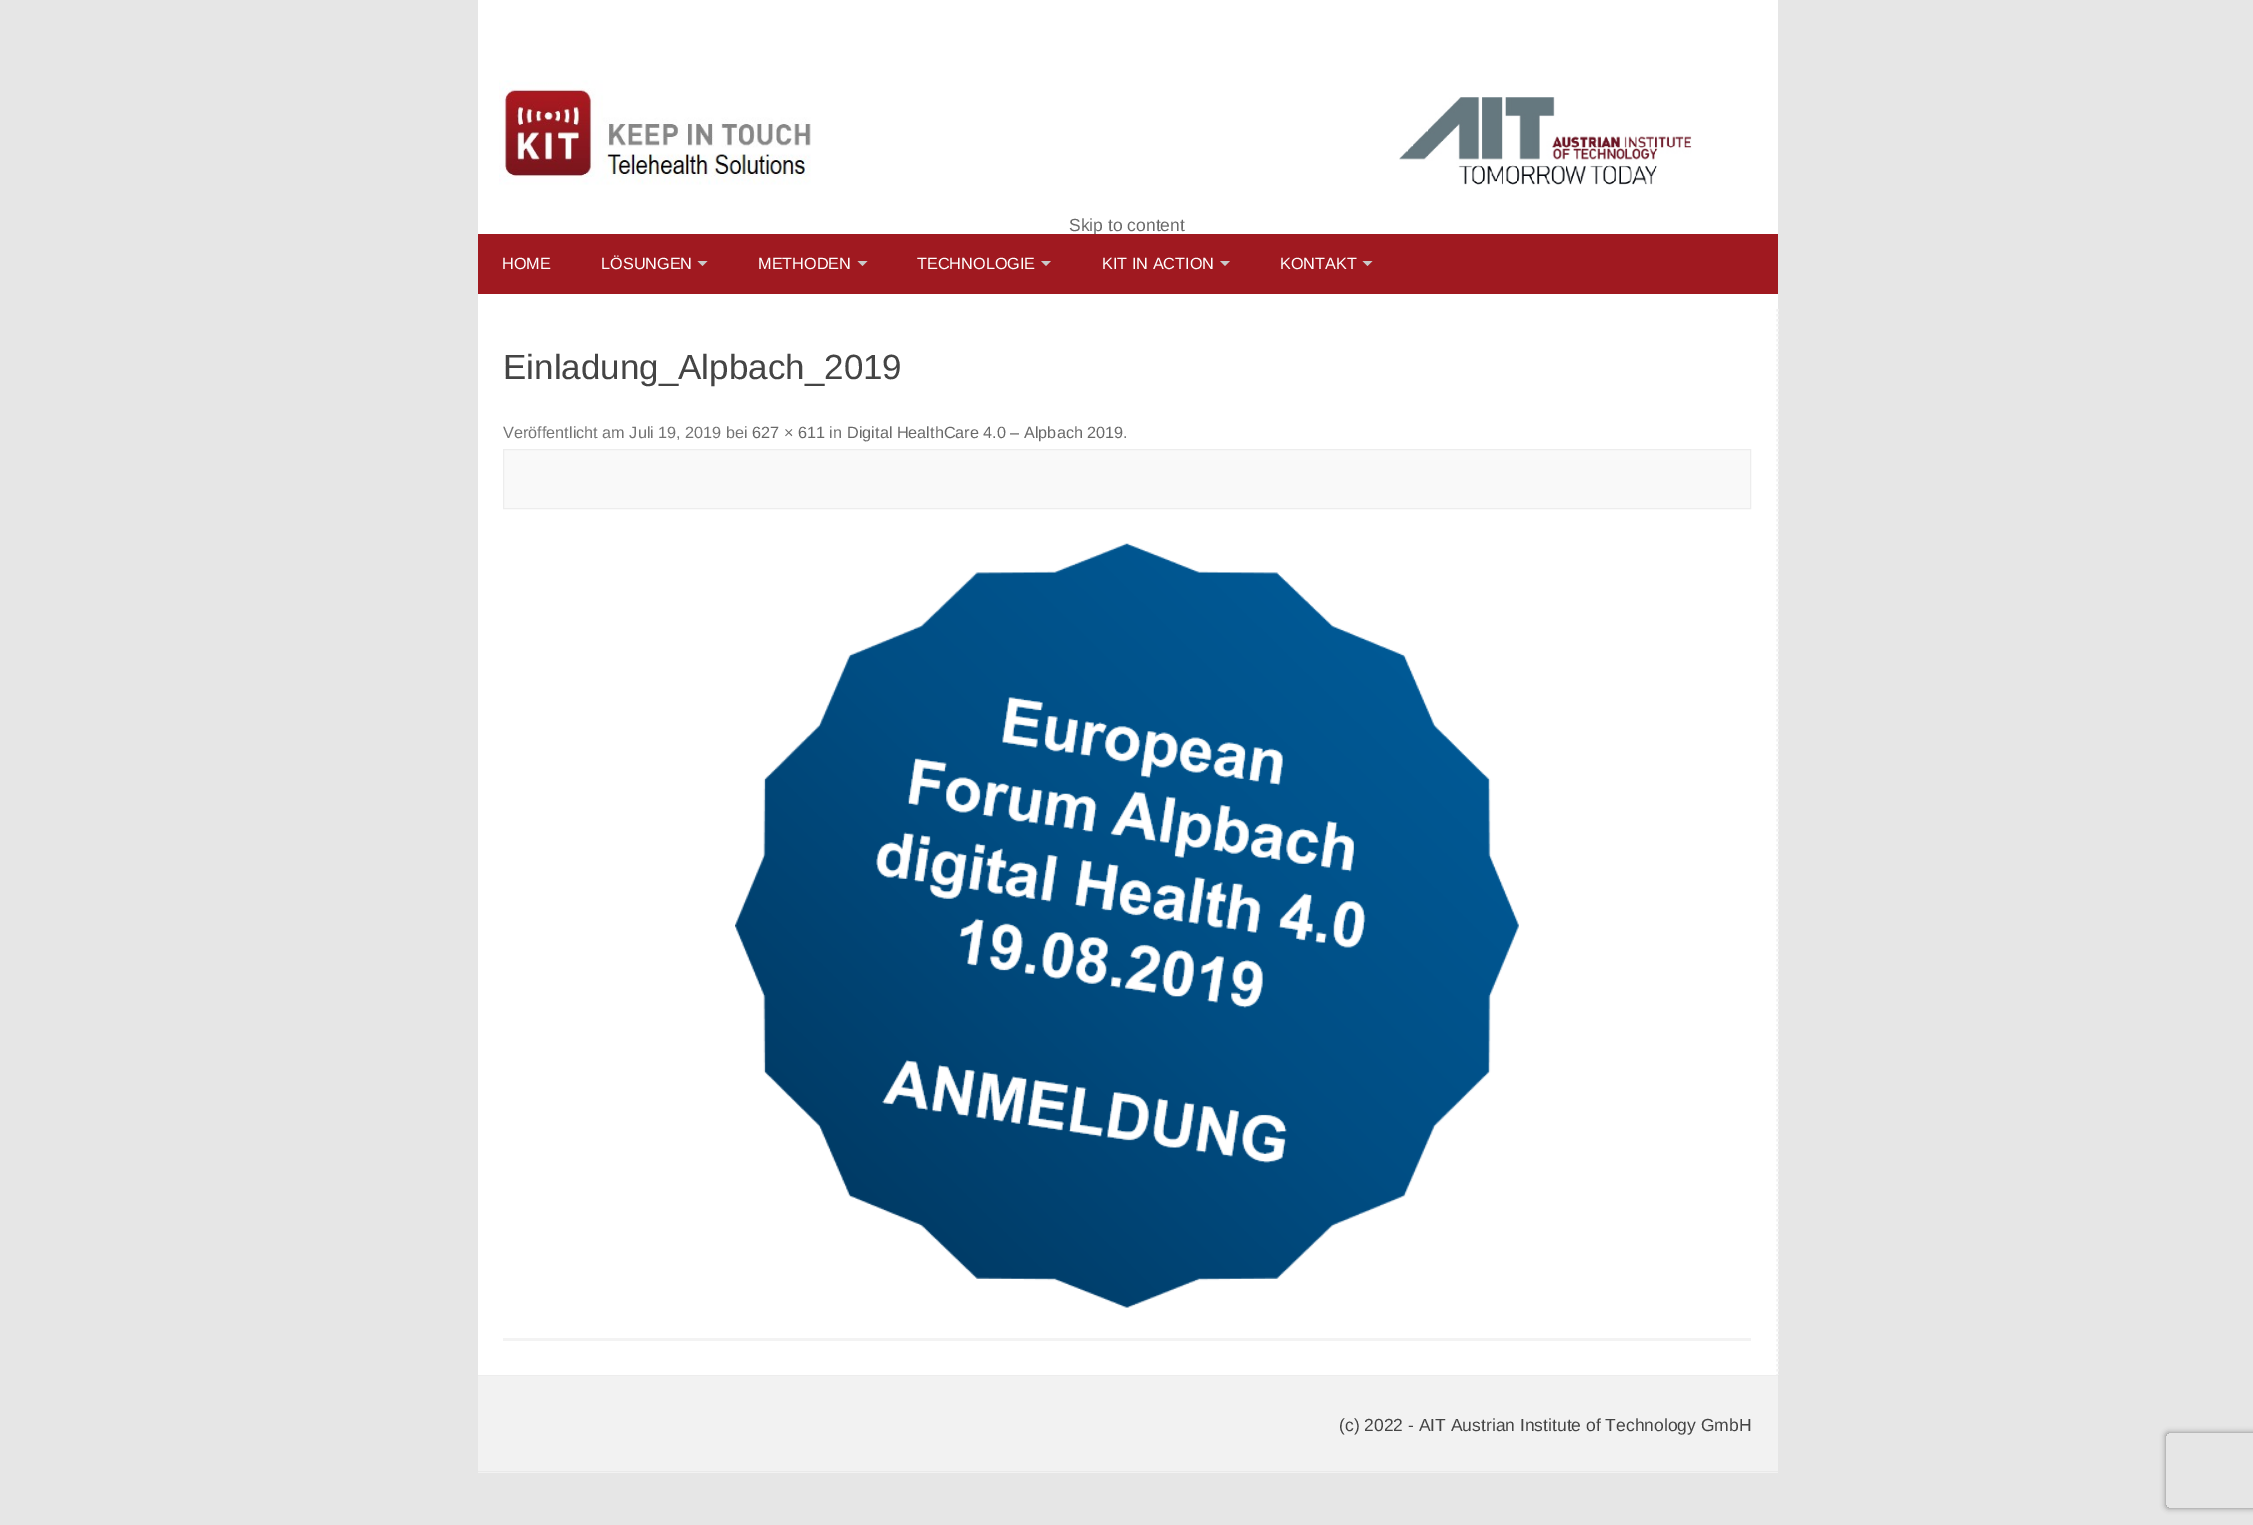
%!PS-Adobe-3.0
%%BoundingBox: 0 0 2253 1525
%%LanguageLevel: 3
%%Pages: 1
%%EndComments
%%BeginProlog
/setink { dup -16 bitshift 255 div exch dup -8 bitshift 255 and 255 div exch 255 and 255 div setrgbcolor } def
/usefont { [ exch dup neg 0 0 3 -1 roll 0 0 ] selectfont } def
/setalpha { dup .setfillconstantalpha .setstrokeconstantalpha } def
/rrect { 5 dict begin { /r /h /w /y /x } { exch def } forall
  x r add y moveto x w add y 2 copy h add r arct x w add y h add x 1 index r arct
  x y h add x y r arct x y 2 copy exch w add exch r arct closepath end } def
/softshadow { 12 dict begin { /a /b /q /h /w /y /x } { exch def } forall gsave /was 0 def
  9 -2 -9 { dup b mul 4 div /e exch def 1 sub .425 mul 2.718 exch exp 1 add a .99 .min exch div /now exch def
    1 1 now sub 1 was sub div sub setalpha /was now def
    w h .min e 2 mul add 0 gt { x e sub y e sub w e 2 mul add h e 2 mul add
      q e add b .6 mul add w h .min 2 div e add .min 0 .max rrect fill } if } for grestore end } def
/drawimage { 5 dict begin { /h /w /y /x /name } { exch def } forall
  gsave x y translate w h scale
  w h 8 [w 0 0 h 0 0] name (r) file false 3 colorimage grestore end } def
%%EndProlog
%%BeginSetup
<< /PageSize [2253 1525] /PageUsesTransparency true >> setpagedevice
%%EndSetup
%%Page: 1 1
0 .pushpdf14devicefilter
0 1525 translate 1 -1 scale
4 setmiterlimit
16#E6E6E6 setink
0 0 2253 1525 rectfill
16#FFFFFF setink
478 0 1300 1375 rectfill
(img1.raw) 499 80 312 105 drawimage
(img2.raw) 1399 97 293 88 drawimage
/LiberationSans-Regular 17.5 usefont
16#6A6A6A setink
1069 231 moveto (Skip to content) show
16#A01920 setink
478 234 1300 60 rectfill
/LiberationSans-Regular 16.25 usefont
16#FFFFFF setink
502 269 moveto (HOME) show
601 269 moveto (LÖSUNGEN) show
16#C9C9C9 setink
697.5 261 moveto 707.5 261 lineto 702.5 266 lineto closepath fill
16#FFFFFF setink
758 269 moveto (METHODEN) show
16#C9C9C9 setink
857.5 261 moveto 867.5 261 lineto 862.5 266 lineto closepath fill
16#FFFFFF setink
917 269 moveto (TECHNOLOGIE) show
16#C9C9C9 setink
1041 261 moveto 1051 261 lineto 1046 266 lineto closepath fill
16#FFFFFF setink
1102 269 moveto (KIT IN ACTION) show
16#C9C9C9 setink
1220 261 moveto 1230 261 lineto 1225 266 lineto closepath fill
16#FFFFFF setink
1280 269 moveto (KONTAKT) show
16#C9C9C9 setink
1362.5 261 moveto 1372.5 261 lineto 1367.5 266 lineto closepath fill
16#F1F1F1 setink
2.5 setlinewidth
[2.5 2.5] 0 setdash
1777.5 309 moveto 1777.5 1375 lineto stroke
16#F3F3F3 setink
503 1338 1248 3 rectfill
/LiberationSans-Regular 35 usefont
16#444444 setink
503 379 moveto (Einladung_Alpbach_2019) show
/LiberationSans-Regular 16.25 usefont
16#757575 setink
503 438 moveto (Veröffentlicht am Juli 19, 2019 bei) show
16#6A6A6A setink
752 438 moveto (627 × 611) show
16#757575 setink
829 438 moveto (in) show
16#6A6A6A setink
847 438 moveto (Digital HealthCare 4.0 – Alpbach 2019) show
16#757575 setink
1123 438 moveto (.) show
16#F9F9F9 setink
503.5 449.5 moveto 1750.5 449.5 lineto 1750.5 508.5 lineto 503.5 508.5 lineto closepath gsave fill grestore
16#EDEDED setink
1 setlinewidth
[] 0 setdash
stroke
(img3.raw) 735 543 784 765 drawimage
[
    [478 1376 1300 97 16#F2F2F2]
    [478 1375 1300 1 16#EDEDED]
    [478 1471 1300 1 16#E9E9E9]
] { aload pop setink rectfill } forall
/LiberationSans-Regular 17.5 usefont
16#444444 setink
1339 1431 moveto (\(c\) 2022 - AIT Austrian Institute of Technology GmbH) show
gsave
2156 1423 moveto 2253 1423 lineto 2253 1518 lineto 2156 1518 lineto closepath 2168.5 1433 moveto 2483.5 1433 lineto 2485 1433 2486 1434 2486 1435.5 curveto 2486 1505.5 lineto 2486 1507 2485 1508 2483.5 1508 curveto 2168.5 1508 lineto 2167 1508 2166 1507 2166 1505.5 curveto 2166 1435.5 lineto 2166 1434 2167 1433 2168.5 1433 curveto closepath eoclip newpath
16#808080 setink
2166 1433 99 75 2.5 3 1 softshadow
grestore
.poppdf14devicefilter showpage
%%EOF
